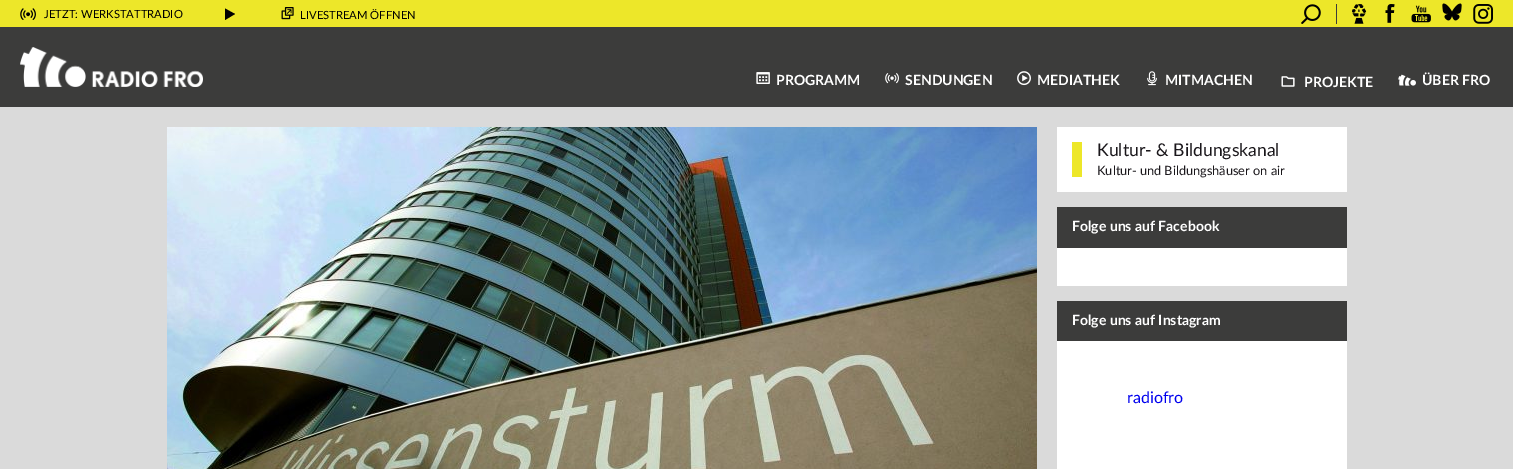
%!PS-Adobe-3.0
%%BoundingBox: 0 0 1513 469
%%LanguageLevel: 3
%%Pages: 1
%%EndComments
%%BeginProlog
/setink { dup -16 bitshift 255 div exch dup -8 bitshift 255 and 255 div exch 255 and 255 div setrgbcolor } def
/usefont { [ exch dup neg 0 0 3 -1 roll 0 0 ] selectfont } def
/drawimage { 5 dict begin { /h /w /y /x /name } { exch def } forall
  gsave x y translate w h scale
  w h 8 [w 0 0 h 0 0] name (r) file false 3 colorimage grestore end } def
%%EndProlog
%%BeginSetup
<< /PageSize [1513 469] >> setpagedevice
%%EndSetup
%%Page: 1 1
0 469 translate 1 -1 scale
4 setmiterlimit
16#DADADA setink
0 0 1513 469 rectfill
16#EDE729 setink
0 0 1513 27 rectfill
(img1.raw) 20 8 16 12 drawimage
/Lato-Regular 11.25 usefont
16#000000 setink
44 18 moveto (JETZT: WERKSTATTRADIO) show
(img2.raw) 281 7 13 13 drawimage
300 19 moveto (LIVESTREAM ÖFFNEN) show
225 14 moveto 225 8.5 lineto 235 14 lineto 225 20 lineto closepath fill
(img3.raw) 1301 4 20 20 drawimage
16#3C3C3B setink
1336 4 1 20 rectfill
(img4.raw) 1352 4 15 20 drawimage
(img5.raw) 1385 4 10 19 drawimage
(img6.raw) 1411 5 20 18 drawimage
(img7.raw) 1442 3 20 18 drawimage
(img8.raw) 1473 4 20 20 drawimage
0 27 1513 80 rectfill
(img9.raw) 20 47 183 40 drawimage
(img10.raw) 756 72 14 12 drawimage
/Lato-Bold 14 usefont
16#FFFFFF setink
776 85 moveto (PROGRAMM) show
(img11.raw) 885 73 14 11 drawimage
905 85 moveto (SENDUNGEN) show
(img12.raw) 1017 71 14 15 drawimage
1037 85 moveto (MEDIATHEK) show
(img13.raw) 1147 71 10 15 drawimage
1165 85 moveto (MITMACHEN) show
(img14.raw) 1281 76 14 11 drawimage
1304 87 moveto (PROJEKTE) show
(img15.raw) 1398 74 18 12 drawimage
1422 85 moveto (ÜBER FRO) show
(img16.raw) 167 127 870 342 drawimage
1057 127 290 65 rectfill
16#EDE729 setink
1072 142 10 35 rectfill
/Lato-Regular 17.6 usefont
16#1A171B setink
1097 156 moveto (Kultur- & Bildungskanal) show
/Lato-Regular 12.75 usefont
1097 175 moveto (Kultur- und Bildungshäuser on air) show
16#FFFFFF setink
1057 248 290 38 rectfill
16#3C3C3B setink
1057 207 290 41 rectfill
/Lato-Bold 14 usefont
16#FFFFFF setink
1072 231 moveto (Folge uns auf Facebook) show
1057 341 290 128 rectfill
16#3C3C3B setink
1057 301 290 40 rectfill
16#FFFFFF setink
1072 325 moveto (Folge uns auf Instagram) show
/Lato-Regular 16 usefont
16#0000EE setink
1127 403 moveto (radiofro) show
showpage
%%EOF
